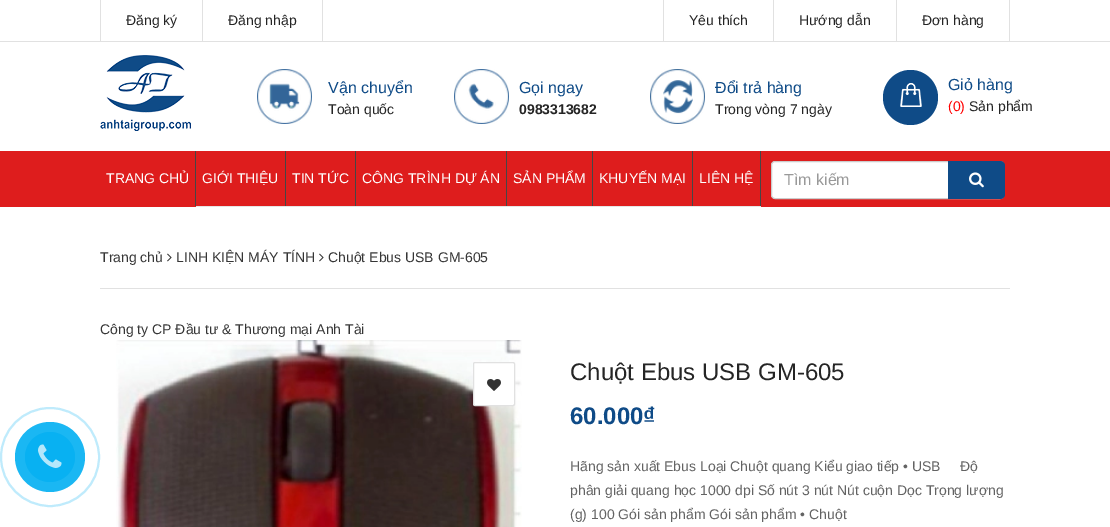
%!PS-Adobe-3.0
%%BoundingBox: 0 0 1110 527
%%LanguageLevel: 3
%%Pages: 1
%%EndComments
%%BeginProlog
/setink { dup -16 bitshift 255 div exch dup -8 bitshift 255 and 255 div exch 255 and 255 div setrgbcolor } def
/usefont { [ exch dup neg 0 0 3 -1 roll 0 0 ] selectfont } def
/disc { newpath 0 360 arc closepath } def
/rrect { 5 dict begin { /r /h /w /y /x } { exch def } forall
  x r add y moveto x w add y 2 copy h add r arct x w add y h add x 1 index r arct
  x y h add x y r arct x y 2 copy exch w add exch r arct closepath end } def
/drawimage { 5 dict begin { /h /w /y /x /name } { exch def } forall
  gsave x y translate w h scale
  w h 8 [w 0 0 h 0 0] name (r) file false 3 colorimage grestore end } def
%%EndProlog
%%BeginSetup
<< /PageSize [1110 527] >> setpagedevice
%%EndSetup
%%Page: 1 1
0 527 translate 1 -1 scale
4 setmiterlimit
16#FFFFFF setink
0 0 1110 527 rectfill
[
    [0 41 1110 1 16#E1E1E1]
    [322 0 1 41 16#E1E1E1]
    [100 0 1 41 16#E1E1E1]
] { aload pop setink rectfill } forall
/LiberationSans-Regular 14 usefont
16#252525 setink
126 25 moveto (Đăng ký) show
16#E1E1E1 setink
202 0 1 41 rectfill
16#252525 setink
228 25 moveto (Đăng nhập) show
16#E1E1E1 setink
1009 0 1 41 rectfill
663 0 1 41 rectfill
16#252525 setink
689 25 moveto (Yêu thích) show
16#E1E1E1 setink
773 0 1 41 rectfill
16#252525 setink
799 25 moveto (Hướng dẫn) show
16#E1E1E1 setink
896 0 1 41 rectfill
16#252525 setink
922 25 moveto (Đơn hàng) show
(img1.raw) 100 55 91 76 drawimage
(img2.raw) 257 69 55 55 drawimage
/LiberationSans-Regular 16 usefont
16#0F4B87 setink
328 93 moveto (Vận chuyển) show
/LiberationSans-Regular 14 usefont
16#252525 setink
328 114 moveto (Toàn quốc) show
(img3.raw) 454 69 55 55 drawimage
/LiberationSans-Regular 16 usefont
16#0F4B87 setink
519 93 moveto (Gọi ngay) show
/LiberationSans-Bold 14 usefont
16#252525 setink
519 114 moveto (0983313682) show
(img4.raw) 650 69 55 55 drawimage
/LiberationSans-Regular 16 usefont
16#0F4B87 setink
715 93 moveto (Đổi trả hàng) show
/LiberationSans-Regular 14 usefont
16#252525 setink
715 114 moveto (Trong vòng 7 ngày) show
16#0F4B87 setink
910.5 97.5 27.5 disc fill
(img5.raw) 900 83 22 24 drawimage
/LiberationSans-Regular 16 usefont
948 90 moveto (Giỏ hàng) show
/LiberationSans-Regular 14 usefont
16#FF0000 setink
948 111 moveto (\(0\)) show
16#252525 setink
969 111 moveto (Sản phẩm) show
16#DE1D1D setink
0 151 1110 56 rectfill
16#464646 setink
195 151 1 55 rectfill
16#FFFFFF setink
106 183 moveto (TRANG CHỦ) show
16#E5E5E5 setink
196 206 565 1 rectfill
16#464646 setink
285 151 1 55 rectfill
16#FFFFFF setink
202 183 moveto (GIỚI THIỆU) show
16#464646 setink
355 151 1 55 rectfill
16#FFFFFF setink
292 183 moveto (TIN TỨC) show
16#464646 setink
506 151 1 55 rectfill
16#FFFFFF setink
362 183 moveto (CÔNG TRÌNH DỰ ÁN) show
16#464646 setink
592 151 1 55 rectfill
16#FFFFFF setink
513 183 moveto (SẢN PHẨM) show
16#464646 setink
692 151 1 55 rectfill
16#FFFFFF setink
599 183 moveto (KHUYẾN MẠI) show
16#464646 setink
760 151 1 55 rectfill
16#FFFFFF setink
699 183 moveto (LIÊN HỆ) show
771.5 161.5 232 37 3.5 rrect gsave fill grestore
16#CCCCCC setink
stroke
/LiberationSans-Regular 16 usefont
16#999999 setink
784 185 moveto (Tìm kiếm) show
16#0F4B87 setink
948 161 moveto 1000 161 lineto 1003 161 1005 163 1005 166 curveto 1005 194 lineto 1005 197 1003 199 1000 199 curveto 948 199 lineto closepath fill
(img6.raw) 969 172 15 16 drawimage
16#E1E1E1 setink
100 288 910 1 rectfill
/LiberationSans-Regular 14 usefont
16#363636 setink
100 262 moveto (Trang chủ) show
(img7.raw) 167 253 5 9 drawimage
176 262 moveto (LINH KIỆN MÁY TÍNH) show
(img7.raw) 319 253 5 9 drawimage
328 262 moveto (Chuột Ebus USB GM-605) show
16#BFEBFC setink
2 setlinewidth
50 457 49 disc stroke
16#1AB7F3 setink
50 457 35 disc fill
16#08B1F2 setink
50 457 25 disc fill
(img8.raw) 38 444 24 24 drawimage
16#363636 setink
100 334 moveto (Công ty CP Đầu tư & Thương mại Anh Tài) show
(img9.raw) 116 340 406 187 drawimage
16#FFFFFF setink
473.5 362.5 41 43 1.5 rrect gsave fill grestore
16#E1E1E1 setink
1 setlinewidth
stroke
(img10.raw) 487 379 14 12 drawimage
/LiberationSans-Regular 24 usefont
16#252525 setink
570 380 moveto (Chuột Ebus USB GM-605) show
/LiberationSans-Bold 24 usefont
16#0F4B87 setink
570 424 moveto (60.000₫) show
/LiberationSans-Regular 14 usefont
16#636363 setink
[
    [(Hãng sản xuất Ebus Loại Chuột quang Kiểu giao tiếp • USB) 570 471]
    [(Độ) 960 471]
    [(phân giải quang học 1000 dpi Số nút 3 nút Nút cuộn Dọc Trọng lượng) 570 495]
    [(\(g\) 100 Gói sản phẩm Gói sản phẩm • Chuột) 570 519]
] { aload pop moveto show } forall
showpage
%%EOF
